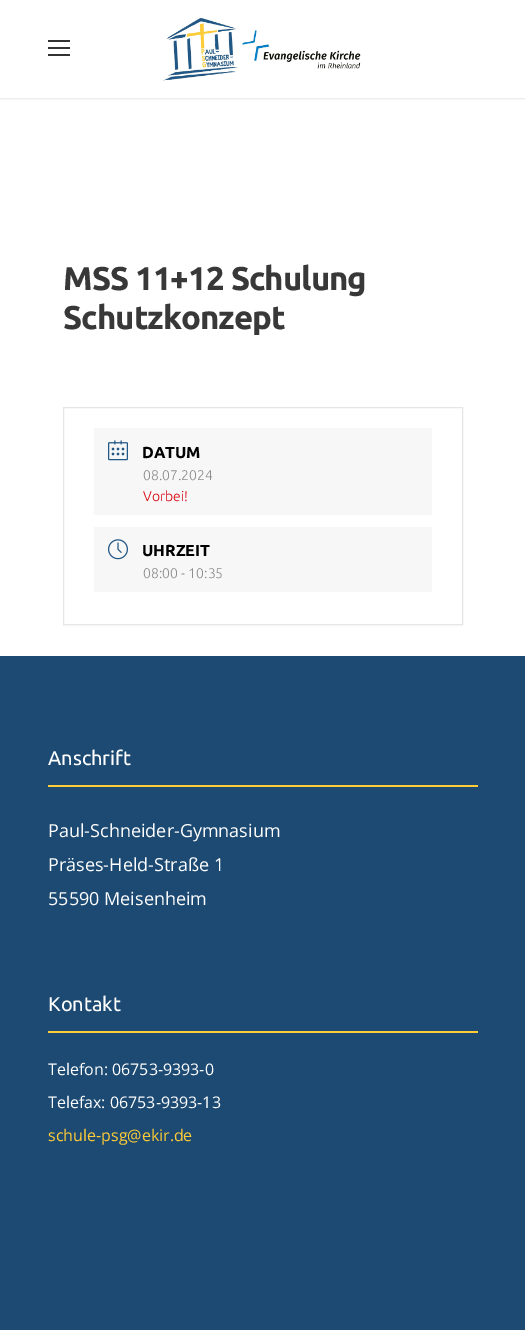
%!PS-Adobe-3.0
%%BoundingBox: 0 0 525 1330
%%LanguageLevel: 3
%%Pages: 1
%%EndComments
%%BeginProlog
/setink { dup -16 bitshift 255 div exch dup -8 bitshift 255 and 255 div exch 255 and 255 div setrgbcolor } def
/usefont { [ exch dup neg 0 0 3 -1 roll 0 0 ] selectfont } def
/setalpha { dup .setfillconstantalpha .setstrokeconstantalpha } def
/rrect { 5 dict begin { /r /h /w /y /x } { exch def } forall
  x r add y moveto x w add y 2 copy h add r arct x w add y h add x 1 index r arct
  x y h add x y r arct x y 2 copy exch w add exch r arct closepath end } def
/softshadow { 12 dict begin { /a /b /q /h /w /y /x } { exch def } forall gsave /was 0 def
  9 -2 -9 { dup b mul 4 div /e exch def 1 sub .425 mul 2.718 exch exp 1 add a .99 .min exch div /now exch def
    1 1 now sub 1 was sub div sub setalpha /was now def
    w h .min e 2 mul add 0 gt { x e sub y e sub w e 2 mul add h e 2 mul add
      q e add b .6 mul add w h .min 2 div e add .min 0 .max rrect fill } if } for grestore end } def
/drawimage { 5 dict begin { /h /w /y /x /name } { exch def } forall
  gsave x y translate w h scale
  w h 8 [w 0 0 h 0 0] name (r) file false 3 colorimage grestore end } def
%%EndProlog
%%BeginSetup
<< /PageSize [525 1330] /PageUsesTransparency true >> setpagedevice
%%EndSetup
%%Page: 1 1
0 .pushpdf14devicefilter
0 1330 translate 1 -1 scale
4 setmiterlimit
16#FFFFFF setink
0 0 525 1330 rectfill
gsave
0 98 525 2 rectclip
16#000000 setink
0 1 525 98 0 1 0.1 softshadow
grestore
[
    [48 40 22 2 16#333333]
    [48 47 22 2 16#333333]
    [48 54 22 2 16#333333]
] { aload pop setink rectfill } forall
(img1.raw) 163 17 198 64 drawimage
/Ubuntu-Bold 33 usefont
16#383838 setink
63 290 moveto -1 0 (MSS 11+12 Schulung) ashow
63 329 moveto -1 0 (Schutzkonzept) ashow
16#FBFBFB setink
63 625 400 2 rectfill
16#E6E6E6 setink
63.5 407.5 399 217 rectstroke
16#F7F7F7 setink
94 428 338 87 rectfill
(img2.raw) 108 440 20 21 drawimage
/Ubuntu-Bold 16 usefont
16#000000 setink
142 458 moveto (DATUM) show
/Ubuntu-Light 14 usefont
16#8D8D8D setink
143 480 moveto (08.07.2024) show
16#D8000C setink
143 501 moveto (Vorbei!) show
16#F7F7F7 setink
94 527 338 65 rectfill
(img3.raw) 108 539 20 21 drawimage
/Ubuntu-Bold 16 usefont
16#000000 setink
142 556 moveto (UHRZEIT) show
/Ubuntu-Light 14 usefont
16#8D8D8D setink
143 578 moveto (08:00 - 10:35) show
16#1C4A72 setink
0 656 525 674 rectfill
16#FECC37 setink
48 785 430 2 rectfill
/Ubuntu-Regular 20 usefont
16#FFFFFF setink
48 765 moveto (Anschrift) show
/OpenSans-Regular 18 usefont
[
    [(Paul-Schneider-Gymnasium) 48 837]
    [(Präses-Held-Straße 1) 48 871]
    [(55590 Meisenheim) 48 905]
] { aload pop moveto show } forall
16#FECC37 setink
48 1031 430 2 rectfill
/Ubuntu-Regular 20 usefont
16#FFFFFF setink
48 1011 moveto (Kontakt) show
/OpenSans-Regular 16 usefont
48 1075 moveto (Telefon: 06753-9393-0) show
48 1108 moveto (Telefax: 06753-9393-13) show
16#FFCC37 setink
48 1141 moveto (schule-psg@ekir.de) show
.poppdf14devicefilter showpage
%%EOF
